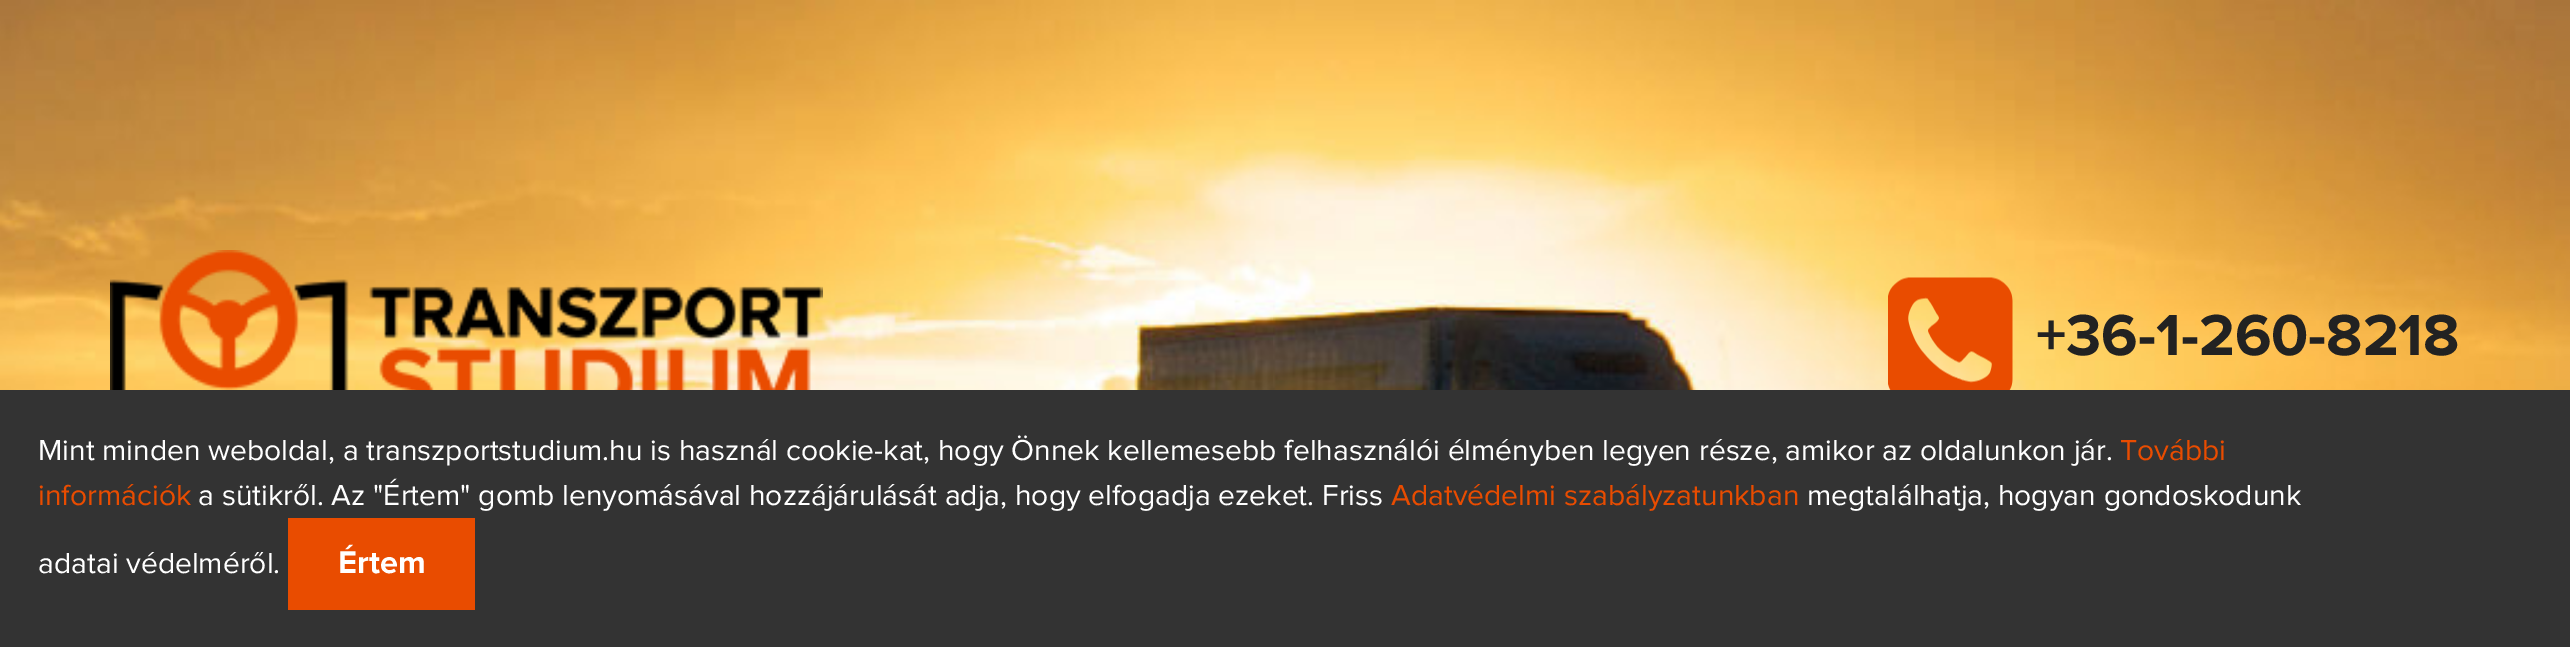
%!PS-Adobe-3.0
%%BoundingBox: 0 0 2570 647
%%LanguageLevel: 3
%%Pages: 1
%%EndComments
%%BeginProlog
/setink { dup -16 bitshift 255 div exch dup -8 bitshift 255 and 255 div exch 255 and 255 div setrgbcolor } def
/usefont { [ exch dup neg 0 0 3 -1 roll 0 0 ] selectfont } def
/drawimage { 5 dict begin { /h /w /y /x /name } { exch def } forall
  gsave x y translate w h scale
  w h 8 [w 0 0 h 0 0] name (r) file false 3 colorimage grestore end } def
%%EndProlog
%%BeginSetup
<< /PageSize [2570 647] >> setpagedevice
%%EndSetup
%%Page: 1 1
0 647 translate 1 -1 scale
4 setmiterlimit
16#FFFFFF setink
0 0 2570 647 rectfill
(img1.raw) 0 0 2570 390 drawimage
(img2.raw) 110 250 713 140 drawimage
(img3.raw) 1888 277 125 113 drawimage
/ProximaNova-Bold 60 usefont
16#222222 setink
2036 355 moveto (+36-1-260-8218) show
16#333333 setink
0 390 2570 257 rectfill
/ProximaNova-Regular 30 usefont
16#FFFFFF setink
38 460 moveto (Mint minden weboldal, a transzportstudium.hu is használ cookie-kat, hogy Önnek kellemesebb felhasználói élményben legyen része, amikor az oldalunkon jár.) show
16#E94C00 setink
2120 460 moveto (További) show
38 505 moveto (információk) show
16#FFFFFF setink
198 505 moveto (a sütikről. Az "Értem" gomb lenyomásával hozzájárulását adja, hogy elfogadja ezeket. Friss) show
16#E94C00 setink
1391 505 moveto (Adatvédelmi szabályzatunkban) show
16#FFFFFF setink
1807 505 moveto (megtalálhatja, hogyan gondoskodunk) show
38 573 moveto (adatai védelméről.) show
16#E94C00 setink
288 518 187 92 rectfill
/ProximaNova-Bold 32.5 usefont
16#FFFFFF setink
338 573 moveto (Értem) show
showpage
%%EOF
